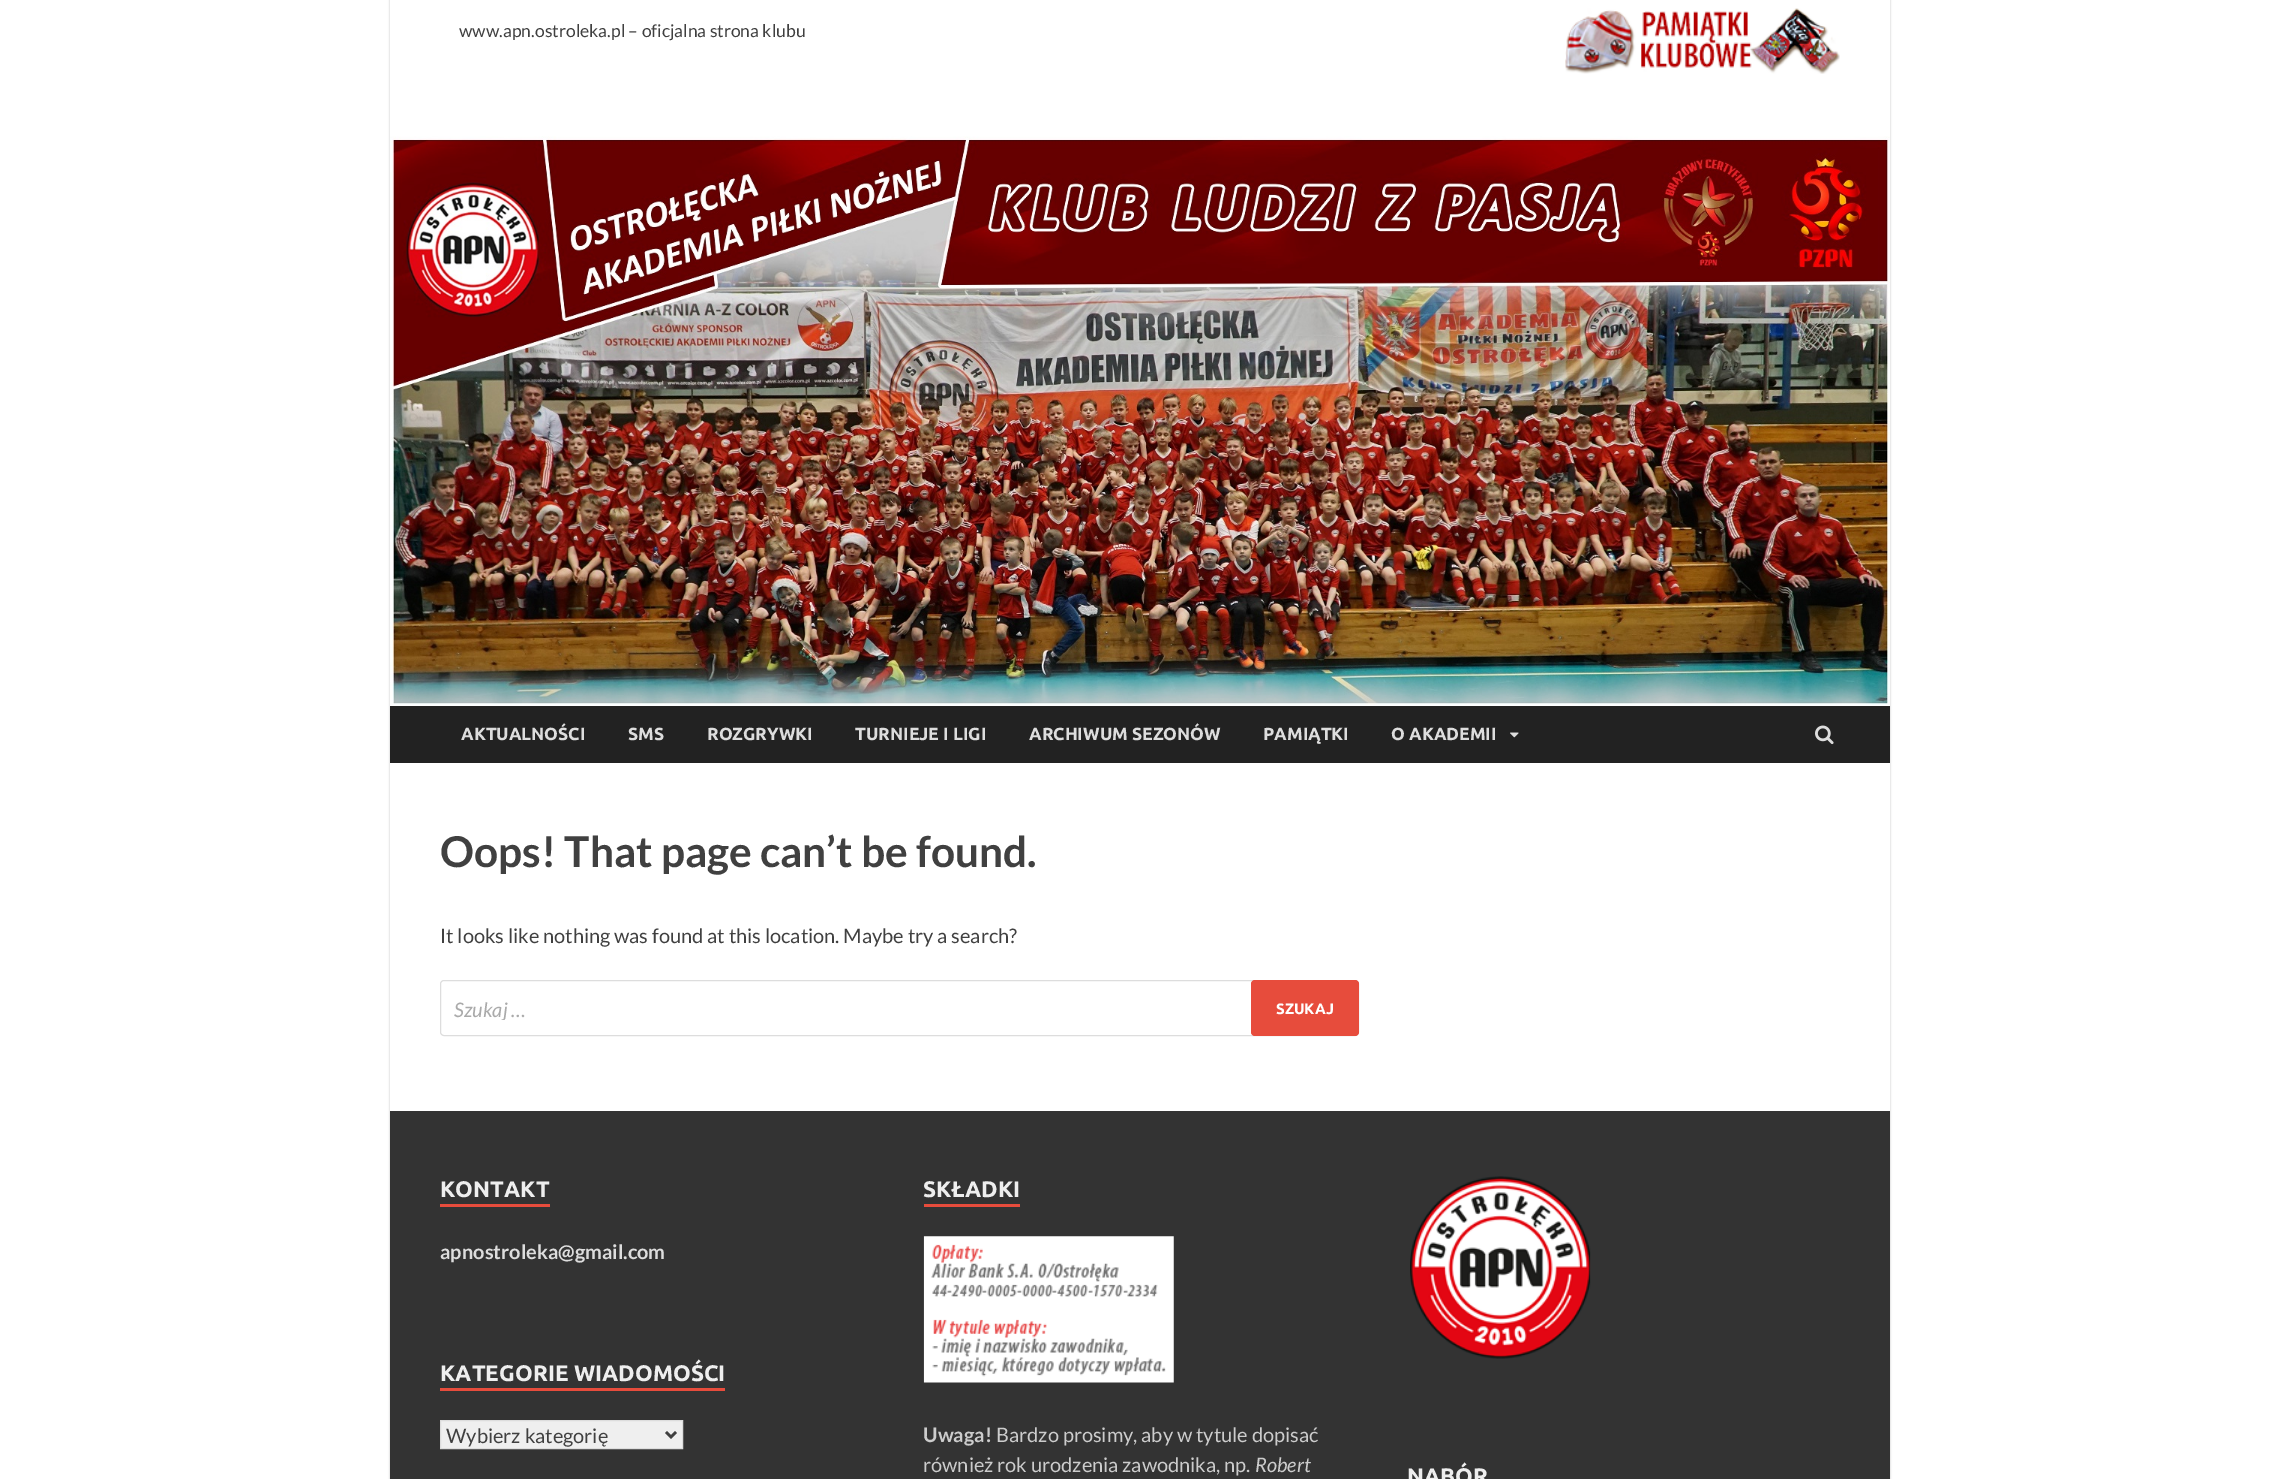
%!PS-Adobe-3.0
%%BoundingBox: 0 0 2279 1479
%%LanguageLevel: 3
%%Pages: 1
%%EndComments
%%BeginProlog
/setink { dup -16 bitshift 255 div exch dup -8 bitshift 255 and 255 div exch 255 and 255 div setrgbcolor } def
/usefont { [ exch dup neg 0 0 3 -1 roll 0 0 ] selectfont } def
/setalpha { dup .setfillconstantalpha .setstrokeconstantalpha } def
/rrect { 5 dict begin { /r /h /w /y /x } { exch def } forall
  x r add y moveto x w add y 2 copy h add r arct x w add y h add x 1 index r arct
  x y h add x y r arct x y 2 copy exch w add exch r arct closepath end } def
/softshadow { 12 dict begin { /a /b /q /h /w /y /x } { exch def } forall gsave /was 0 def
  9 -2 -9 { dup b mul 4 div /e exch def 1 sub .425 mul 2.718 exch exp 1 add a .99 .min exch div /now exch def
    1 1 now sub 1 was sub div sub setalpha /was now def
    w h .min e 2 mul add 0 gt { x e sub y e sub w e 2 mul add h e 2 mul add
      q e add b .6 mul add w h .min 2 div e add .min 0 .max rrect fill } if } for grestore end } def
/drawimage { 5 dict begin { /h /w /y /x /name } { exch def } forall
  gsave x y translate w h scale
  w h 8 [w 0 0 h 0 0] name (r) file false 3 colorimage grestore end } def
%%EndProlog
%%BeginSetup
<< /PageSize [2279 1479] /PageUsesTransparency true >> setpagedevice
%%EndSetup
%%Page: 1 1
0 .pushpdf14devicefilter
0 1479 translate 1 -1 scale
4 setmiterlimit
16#FFFFFF setink
0 0 2279 1479 rectfill
gsave
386 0 moveto 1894 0 lineto 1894 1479 lineto 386 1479 lineto closepath 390 -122 moveto 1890 -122 lineto 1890 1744 lineto 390 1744 lineto closepath eoclip newpath
16#BBBBBB setink
390 -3 1500 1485 0 1 1 softshadow
grestore
/Lato-Regular 17.5 usefont
16#404040 setink
459 37 moveto (www.apn.ostroleka.pl – oficjalna strona klubu) show
(img1.raw) 1565 8 275 66 drawimage
(img2.raw) 390 136 1500 569 drawimage
16#222222 setink
390 706 1500 57 rectfill
/Ubuntu-Bold 17.5 usefont
16#DDDDDD setink
[
    [(AKTUALNOŚCI) 461 740]
    [(SMS) 628 740]
    [(ROZGRYWKI) 707 740]
    [(TURNIEJE I LIGI) 855 740]
    [(ARCHIWUM SEZONÓW) 1029 740]
    [(PAMIĄTKI) 1263 740]
    [(O AKADEMII) 1391 740]
] { aload pop moveto show } forall
(img3.raw) 1510 732 9 6 drawimage
(img4.raw) 1815 725 19 20 drawimage
/Lato-Bold 42.5 usefont
16#404040 setink
440 867 moveto (Oops! That page can’t be found.) show
/Lato-Regular 20 usefont
440 943 moveto (It looks like nothing was found at this location. Maybe try a search?) show
16#DDDDDD setink
440.5 980.5 918 55 3.5 rrect stroke
gsave
454 996 792 24 rectclip
/Lato-Italic 20 usefont
16#AAAAAA setink
454 1017 moveto (Szukaj …) show
grestore
16#E74C3C setink
1251 980 108 56 4 rrect fill
/Ubuntu-Bold 15 usefont
16#FFFFFF setink
1276 1014 moveto (SZUKAJ) show
16#333333 setink
390 1111 1500 368 rectfill
16#E74C3C setink
440 1204 110 3 rectfill
/Ubuntu-Bold 22.5 usefont
16#EEEEEE setink
440 1197 moveto (KONTAKT) show
/Lato-Bold 20 usefont
16#DDDDDD setink
440 1259 moveto (apnostroleka@gmail.com) show
16#E74C3C setink
440 1388 285 3 rectfill
/Ubuntu-Bold 22.5 usefont
16#EEEEEE setink
440 1381 moveto (KATEGORIE WIADOMOŚCI) show
16#EFEFEF setink
440.5 1420.5 moveto 682.5 1420.5 lineto 682.5 1448.5 lineto 440.5 1448.5 lineto closepath gsave fill grestore
16#DDDDDD setink
stroke
16#404040 setink
2.5 setlinewidth
666 1432 moveto 671 1437 lineto 676 1432 lineto stroke
/Lato-Regular 20 usefont
446 1443 moveto (Wybierz kategorię) show
16#E74C3C setink
924 1204 96 3 rectfill
/Ubuntu-Bold 22.5 usefont
16#EEEEEE setink
923 1197 moveto (SKŁADKI) show
(img5.raw) 923 1236 251 147 drawimage
/Lato-Bold 20 usefont
16#CCCCCC setink
923 1442 moveto (Uwaga!) show
/Lato-Regular 20 usefont
996 1442 moveto (Bardzo prosimy, aby w tytule dopisać) show
923 1472 moveto (również rok urodzenia zawodnika, np.) show
/Lato-Italic 20 usefont
1255 1472 moveto (Robert) show
(img6.raw) 1410 1176 181 183 drawimage
/Ubuntu-Bold 22.5 usefont
16#EEEEEE setink
1407 1484 moveto (NABÓR) show
.poppdf14devicefilter showpage
%%EOF
